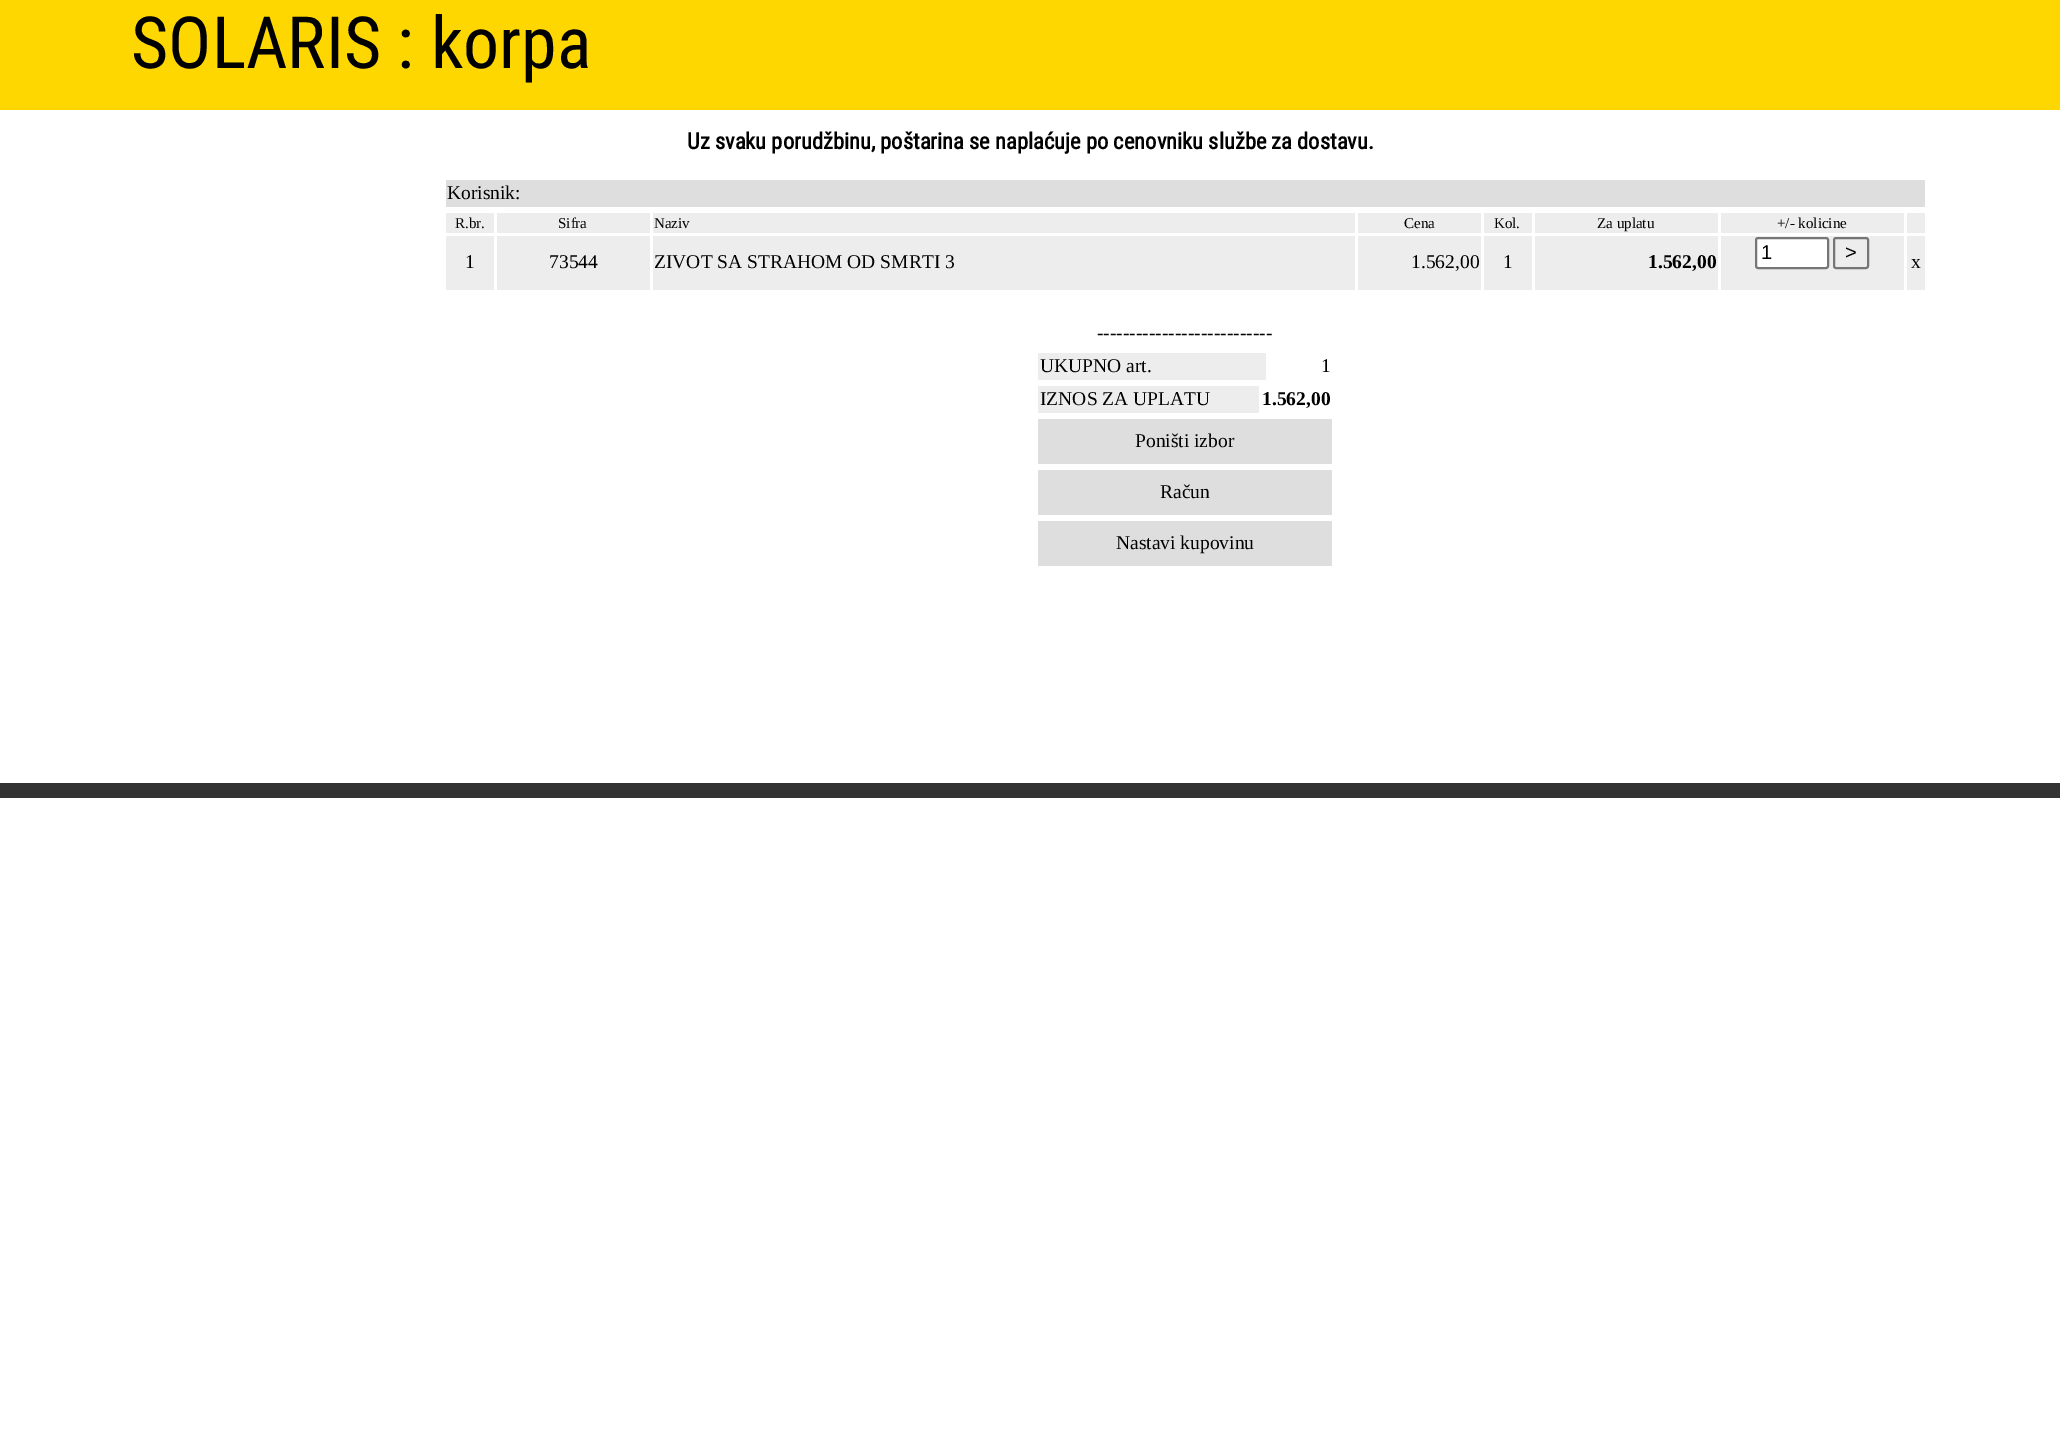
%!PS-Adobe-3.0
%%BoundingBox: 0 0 2060 1437
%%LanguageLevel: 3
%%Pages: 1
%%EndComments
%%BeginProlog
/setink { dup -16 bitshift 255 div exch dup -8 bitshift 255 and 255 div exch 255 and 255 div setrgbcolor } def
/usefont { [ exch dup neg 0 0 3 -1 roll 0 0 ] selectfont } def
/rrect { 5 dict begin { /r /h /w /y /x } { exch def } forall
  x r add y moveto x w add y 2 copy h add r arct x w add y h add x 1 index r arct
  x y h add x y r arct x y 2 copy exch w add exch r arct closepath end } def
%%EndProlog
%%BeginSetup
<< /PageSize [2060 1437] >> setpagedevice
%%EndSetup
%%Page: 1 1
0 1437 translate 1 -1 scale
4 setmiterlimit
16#FFFFFF setink
0 0 2060 1437 rectfill
16#FED700 setink
0 0 2060 110 rectfill
/RobotoCondensed-Regular 72 usefont
16#000000 setink
131 68 moveto (SOLARIS : korpa) show
/RobotoCondensed-Bold 22.5 usefont
687 149 moveto (Uz svaku porudžbinu, poštarina se naplaćuje po cenovniku službe za dostavu.) show
16#DEDEDE setink
446 180 1479 27 rectfill
/LiberationSerif-Regular 19.5 usefont
16#000000 setink
447 199 moveto (Korisnik:) show
16#EDEDED setink
446 213 48 20 rectfill
/LiberationSerif-Regular 15 usefont
16#000000 setink
455 228 moveto (R.br.) show
16#EDEDED setink
497 213 153 20 rectfill
16#000000 setink
558 228 moveto (Sifra) show
16#EDEDED setink
653 213 702 20 rectfill
16#000000 setink
654 228 moveto (Naziv) show
16#EDEDED setink
1358 213 123 20 rectfill
16#000000 setink
1404 228 moveto (Cena) show
16#EDEDED setink
1484 213 48 20 rectfill
16#000000 setink
1494 228 moveto (Kol.) show
16#EDEDED setink
1535 213 183 20 rectfill
16#000000 setink
1597 228 moveto (Za uplatu) show
16#EDEDED setink
1721 213 183 20 rectfill
16#000000 setink
1777 228 moveto (+/- kolicine) show
16#EDEDED setink
1907 213 18 20 rectfill
1721 236 183 54 rectfill
16#FFFFFF setink
1756 238 72 30 2 rrect gsave fill grestore
16#767676 setink
2 setlinewidth
stroke
/LiberationSans-Regular 20 usefont
16#000000 setink
1761 259 moveto (1) show
16#767676 setink
1834 238 34 30 2 rrect stroke
16#000000 setink
1845 259 moveto (>) show
16#EDEDED setink
446 236 48 54 rectfill
/LiberationSerif-Regular 19.5 usefont
16#000000 setink
465 268 moveto (1) show
16#EDEDED setink
497 236 153 54 rectfill
16#000000 setink
549 268 moveto (73544) show
16#EDEDED setink
653 236 702 54 rectfill
16#000000 setink
654 268 moveto (ZIVOT SA STRAHOM OD SMRTI 3) show
16#EDEDED setink
1358 236 123 54 rectfill
16#000000 setink
1411 268 moveto (1.562,00) show
16#EDEDED setink
1484 236 48 54 rectfill
16#000000 setink
1503 268 moveto (1) show
16#EDEDED setink
1535 236 183 54 rectfill
/LiberationSerif-Bold 19.5 usefont
16#000000 setink
1648 268 moveto (1.562,00) show
16#EDEDED setink
1907 236 18 54 rectfill
/LiberationSerif-Regular 19.5 usefont
16#000000 setink
1911 268 moveto (x) show
1097 339 moveto (---------------------------) show
16#EDEDED setink
1038 353 228 27 rectfill
16#000000 setink
1040 372 moveto (UKUPNO art.) show
1321 372 moveto (1) show
16#EDEDED setink
1038 386 221 27 rectfill
16#000000 setink
1040 405 moveto (IZNOS ZA UPLATU) show
/LiberationSerif-Bold 19.5 usefont
1262 405 moveto (1.562,00) show
16#DEDEDE setink
1038 419 294 45 rectfill
/LiberationSerif-Regular 19.5 usefont
16#000000 setink
1135 447 moveto (Poništi izbor) show
16#DEDEDE setink
1038 470 294 45 rectfill
16#000000 setink
1160 498 moveto (Račun) show
16#DEDEDE setink
1038 521 294 45 rectfill
16#000000 setink
1116 549 moveto (Nastavi kupovinu) show
16#333333 setink
0 783 2060 15 rectfill
showpage
%%EOF
